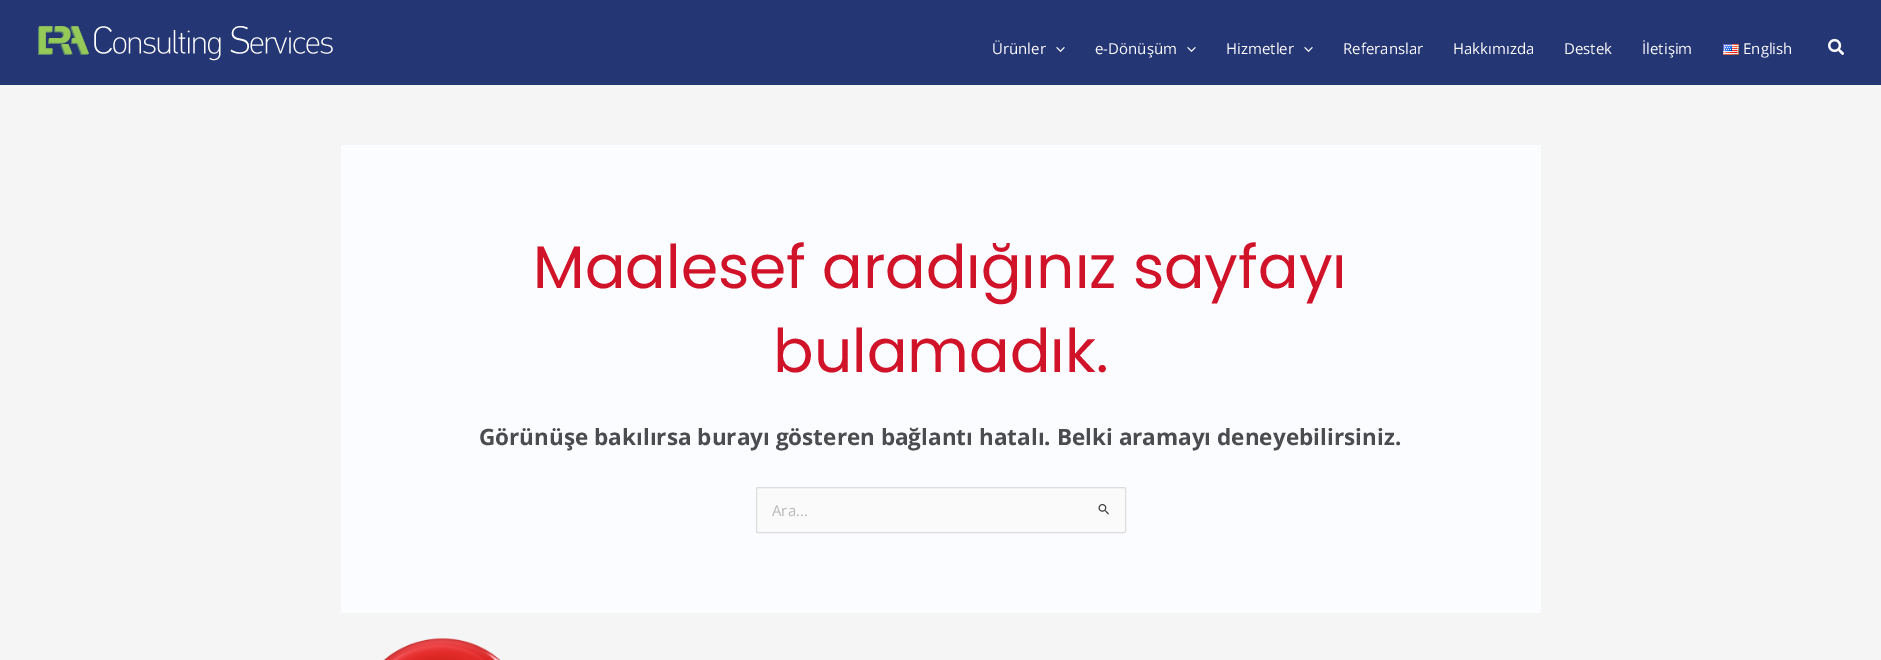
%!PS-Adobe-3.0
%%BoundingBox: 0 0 1881 660
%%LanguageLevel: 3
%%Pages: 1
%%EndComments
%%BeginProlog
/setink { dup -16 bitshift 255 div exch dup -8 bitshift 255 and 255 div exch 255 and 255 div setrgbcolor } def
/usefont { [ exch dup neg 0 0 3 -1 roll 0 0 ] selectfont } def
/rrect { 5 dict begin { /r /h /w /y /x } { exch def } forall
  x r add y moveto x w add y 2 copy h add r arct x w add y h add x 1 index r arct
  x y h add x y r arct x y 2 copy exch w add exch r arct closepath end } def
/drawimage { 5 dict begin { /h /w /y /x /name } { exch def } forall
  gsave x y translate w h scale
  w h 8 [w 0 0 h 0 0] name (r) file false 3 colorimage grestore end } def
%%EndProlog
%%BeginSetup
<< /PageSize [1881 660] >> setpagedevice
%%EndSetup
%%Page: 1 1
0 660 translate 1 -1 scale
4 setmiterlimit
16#F5F5F5 setink
0 0 1881 660 rectfill
16#243673 setink
0 0 1881 85 rectfill
(img1.raw) 38 26 295 35 drawimage
/OpenSans-Regular 15 usefont
16#FBFCFF setink
992 54 moveto (Ürünler) show
(img2.raw) 1056 47 9 5 drawimage
1095 54 moveto (e-Dönüşüm) show
(img2.raw) 1187 47 9 5 drawimage
1226 54 moveto (Hizmetler) show
(img2.raw) 1304 47 9 5 drawimage
[
    [(Referanslar) 1343 54]
    [(Hakkımızda) 1453 54]
    [(Destek) 1564 54]
    [(İletişim) 1642 54]
] { aload pop moveto show } forall
(img3.raw) 1723 44 16 11 drawimage
1743 54 moveto (English) show
(img4.raw) 1828 38 16 17 drawimage
341 145 1200 468 rectfill
/Poppins-Regular 60 usefont
16#D11329 setink
533 288 moveto (Maalesef aradığınız sayfayı) show
773 372 moveto (bulamadık.) show
/OpenSans-Bold 22.5 usefont
16#4B4C4D setink
479 445 moveto (Görünüşe bakılırsa burayı gösteren bağlantı hatalı. Belki aramayı deneyebilirsiniz.) show
16#FAFAFA setink
756.5 487.5 369 45 1.5 rrect gsave fill grestore
16#DDDDDD setink
stroke
/OpenSans-Regular 15 usefont
16#B8B8B8 setink
772 516 moveto (Ara...) show
(img5.raw) 1098 504 11 11 drawimage
(img6.raw) 383 638 118 22 drawimage
showpage
%%EOF
